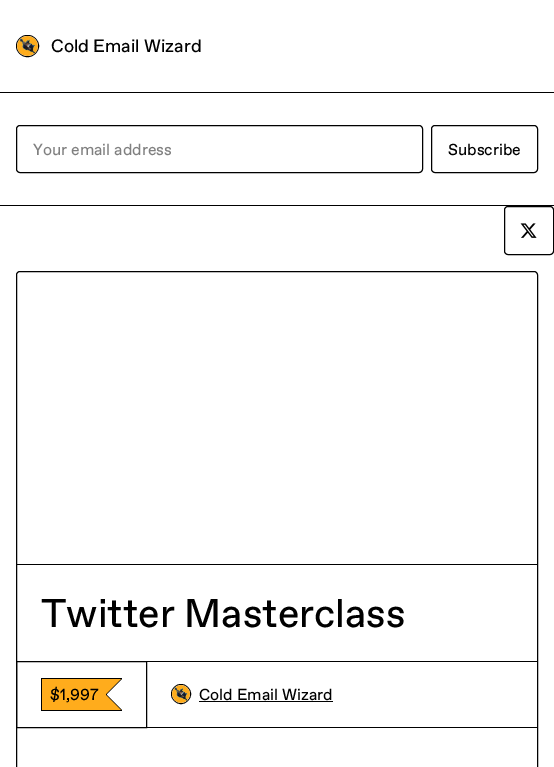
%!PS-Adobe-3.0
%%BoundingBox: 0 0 554 767
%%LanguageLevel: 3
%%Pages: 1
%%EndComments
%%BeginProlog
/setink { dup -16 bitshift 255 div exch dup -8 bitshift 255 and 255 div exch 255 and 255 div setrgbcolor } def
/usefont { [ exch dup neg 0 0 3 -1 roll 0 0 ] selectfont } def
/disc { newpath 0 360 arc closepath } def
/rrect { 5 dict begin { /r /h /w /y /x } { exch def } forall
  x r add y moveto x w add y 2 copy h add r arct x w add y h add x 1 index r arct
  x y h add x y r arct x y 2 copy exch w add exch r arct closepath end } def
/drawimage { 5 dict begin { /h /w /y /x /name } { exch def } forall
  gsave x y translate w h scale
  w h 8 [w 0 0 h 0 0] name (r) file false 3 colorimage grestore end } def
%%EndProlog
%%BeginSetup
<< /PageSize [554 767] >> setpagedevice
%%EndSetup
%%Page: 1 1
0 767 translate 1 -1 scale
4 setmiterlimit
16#FFFFFF setink
0 0 554 767 rectfill
16#000000 setink
0 92 554 1 rectfill
16.5 35.5 22 21 10.5 rrect stroke
(img1.raw) 17 36 21 20 drawimage
/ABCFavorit-Regular 18 usefont
51 52 moveto (Cold Email Wizard) show
0 205 554 1 rectfill
16.5 125.5 406 47 3.5 rrect stroke
/ABCFavorit-Regular 16 usefont
16#808080 setink
33 155 moveto (Your email address) show
16#000000 setink
431.5 125.5 106 47 3.5 rrect stroke
448 155 moveto (Subscribe) show
504.5 206.5 49 48 3.5 rrect stroke
(img2.raw) 520 223 17 15 drawimage
16.5 271.5 521 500 3.5 rrect stroke
17 564 520 1 rectfill
/ABCFavorit-Regular 40 usefont
41 627 moveto (Twitter Masterclass) show
147 661 390 1 rectfill
16.5 661.5 130 66 rectstroke
[
    [41 678 81 1 16#000000]
    [41 710 81 1 16#000000]
    [41 678 1 33 16#000000]
    [42 679 64 31 16#FFAC1C]
] { aload pop setink rectfill } forall
16#000000 setink
106 679 moveto 122 679 lineto 107 694 lineto closepath 122 710 moveto 106 710 lineto 107 695 lineto closepath fill
106 693 1 3 rectfill
16#FFAC1C setink
105 679 moveto 121 679 lineto 106 694 lineto closepath 121 710 moveto 105 710 lineto 106 695 lineto closepath fill
/ABCFavorit-Regular 16 usefont
16#000000 setink
50 700 moveto ($1,997) show
181 694 9.5 disc stroke
(img3.raw) 172 685 18 18 drawimage
199 700 moveto (Cold Email Wizard) show
199 701 134 1 rectfill
147 727 390 1 rectfill
showpage
%%EOF
